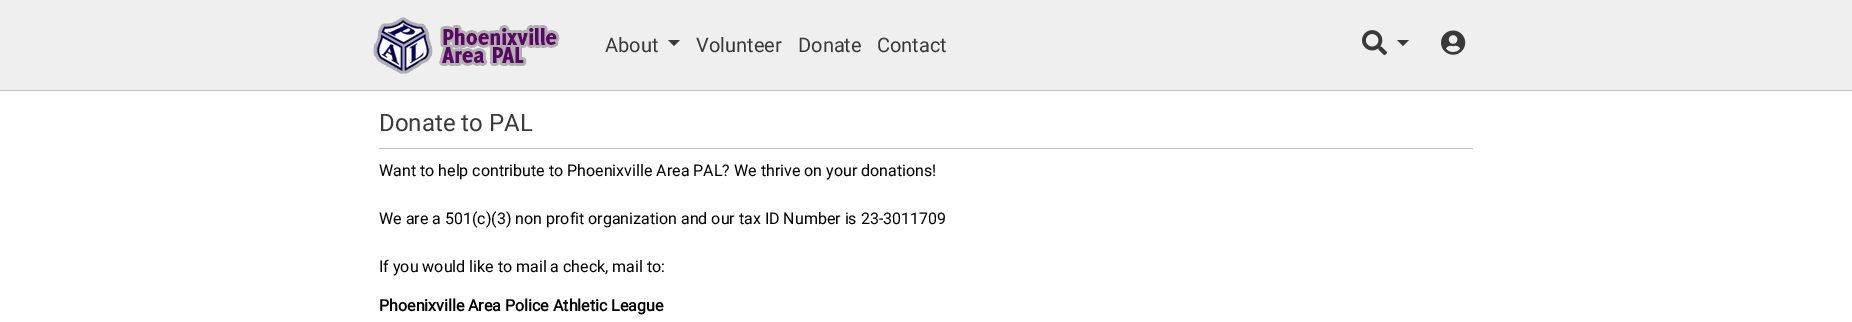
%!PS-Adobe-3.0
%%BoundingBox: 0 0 1852 322
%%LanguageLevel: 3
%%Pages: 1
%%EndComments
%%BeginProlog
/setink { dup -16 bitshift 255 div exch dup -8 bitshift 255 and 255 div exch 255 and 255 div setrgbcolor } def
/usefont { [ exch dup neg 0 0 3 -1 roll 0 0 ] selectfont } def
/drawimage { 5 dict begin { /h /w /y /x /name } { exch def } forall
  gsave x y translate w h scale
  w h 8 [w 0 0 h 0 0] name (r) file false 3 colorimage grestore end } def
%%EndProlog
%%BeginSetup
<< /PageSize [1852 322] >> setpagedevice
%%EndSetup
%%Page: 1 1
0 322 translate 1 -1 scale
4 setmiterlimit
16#FFFFFF setink
0 0 1852 322 rectfill
16#EFEFEF setink
0 0 1852 90 rectfill
16#C0C0C0 setink
0 90 1852 1 rectfill
(img1.raw) 373 17 187 57 drawimage
/Roboto-Regular 20 usefont
16#393939 setink
605 52 moveto (About) show
668 40 moveto 680 40 lineto 674 46 lineto closepath fill
[
    [(Volunteer) 696 52]
    [(Donate) 798 52]
    [(Contact) 877 52]
] { aload pop moveto show } forall
(img2.raw) 1362 30 25 26 drawimage
1397 40 moveto 1409 40 lineto 1403 46 lineto closepath fill
(img3.raw) 1441 30 25 25 drawimage
16#C0C0C0 setink
379 148 1094 1 rectfill
/Roboto-Regular 24 usefont
16#393939 setink
379 131 moveto (Donate to PAL) show
/Roboto-Regular 16 usefont
16#000000 setink
[
    [(Want to help contribute to Phoenixville Area PAL? We thrive on your donations!) 379 176]
    [(We are a 501\(c\)\(3\) non profit organization and our tax ID Number is 23-3011709) 379 224]
    [(If you would like to mail a check, mail to:) 379 272]
] { aload pop moveto show } forall
/Roboto-Bold 16 usefont
379 311 moveto (Phoenixville Area Police Athletic League) show
showpage
%%EOF
